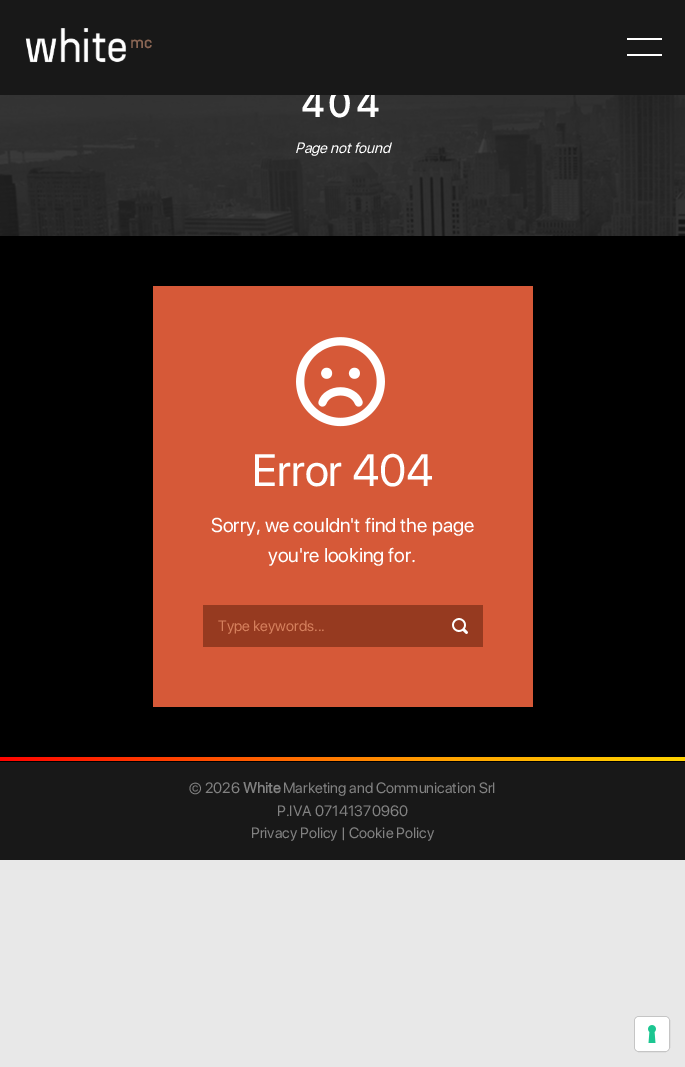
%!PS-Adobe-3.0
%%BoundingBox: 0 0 685 1067
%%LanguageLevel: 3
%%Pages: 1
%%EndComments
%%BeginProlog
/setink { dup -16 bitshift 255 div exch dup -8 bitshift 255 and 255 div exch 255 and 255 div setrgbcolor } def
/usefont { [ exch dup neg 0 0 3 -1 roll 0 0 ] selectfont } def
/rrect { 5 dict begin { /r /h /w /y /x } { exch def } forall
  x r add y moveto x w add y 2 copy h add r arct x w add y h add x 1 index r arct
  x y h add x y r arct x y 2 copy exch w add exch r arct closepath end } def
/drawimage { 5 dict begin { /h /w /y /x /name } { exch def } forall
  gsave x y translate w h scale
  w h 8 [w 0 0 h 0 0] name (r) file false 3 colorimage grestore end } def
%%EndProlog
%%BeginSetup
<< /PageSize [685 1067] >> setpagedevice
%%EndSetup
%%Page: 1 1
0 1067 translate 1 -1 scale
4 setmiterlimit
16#E8E8E8 setink
0 0 685 1067 rectfill
16#000000 setink
0 236 685 526 rectfill
(img2.raw) 0 95 685 141 drawimage
/SFProDisplay-Bold 37 usefont
16#FFFFFF setink
301 117 moveto 5 0 (404) ashow
16#181818 setink
0 0 685 95 rectfill
(img1.raw) 25 28 102 35 drawimage
/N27-Medium 16 usefont
16#8A6654 setink
130 48 moveto (mc) show
16#FFFFFF setink
627 38 35 2 rectfill
627 54 35 2 rectfill
/SFProDisplay-Italic 15 usefont
295 153 moveto (Page not found) show
16#D65938 setink
153 286 380 421 rectfill
(img3.raw) 296 337 89 90 drawimage
/SFProDisplay-Regular 45 usefont
16#FFFFFF setink
252 486 moveto (Error 404) show
/SFProDisplay-Regular 20 usefont
211 532 moveto (Sorry, we couldn't find the page) show
268 562 moveto (you're looking for.) show
16#963A20 setink
203 605 280 42 rectfill
/SFProDisplay-Regular 15 usefont
16#D57F5C setink
218 631 moveto (Type keywords...) show
(img4.raw) 452 618 16 16 drawimage
gsave 0 757 moveto 685 757 lineto 685 761 lineto 0 761 lineto closepath clip newpath
<< /ShadingType 2 /ColorSpace /DeviceRGB /Coords [681 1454 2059 76] /Extend [true true] /Function << /FunctionType 3 /Domain [0 1] /Functions [<< /FunctionType 2 /Domain [0 1] /C0 [1 0 0] /C1 [1 0.647 0] /N 1 >> << /FunctionType 2 /Domain [0 1] /C0 [1 0.647 0] /C1 [1 1 0] /N 1 >> << /FunctionType 2 /Domain [0 1] /C0 [1 1 0] /C1 [0 0.502 0] /N 1 >> << /FunctionType 2 /Domain [0 1] /C0 [0 0.502 0] /C1 [0 0 1] /N 1 >> << /FunctionType 2 /Domain [0 1] /C0 [0 0 1] /C1 [0.294 0 0.51] /N 1 >> << /FunctionType 2 /Domain [0 1] /C0 [0.294 0 0.51] /C1 [0.933 0.51 0.933] /N 1 >>] /Bounds [0.17 0.33 0.5 0.67 0.83] /Encode [0 1 0 1 0 1 0 1 0 1 0 1] >> >> shfill grestore
16#181818 setink
0 762 685 98 rectfill
16#828282 setink
189 793 moveto (© 2026) show
/SFProDisplay-Bold 15 usefont
243 793 moveto (White) show
/SFProDisplay-Regular 15 usefont
[
    [(Marketing and Communication Srl) 283 793]
    [(P.IVA 07141370960) 277 816]
    [(Privacy Policy) 251 838]
    [(|) 341 838]
    [(Cookie Policy) 349 838]
] { aload pop moveto show } forall
16#C5C5C5 setink
634.5 1016.5 35 35 4.5 rrect stroke
16#FFFFFF setink
635 1017 34 34 4 rrect fill
(img5.raw) 648 1025 8 18 drawimage
showpage
%%EOF
